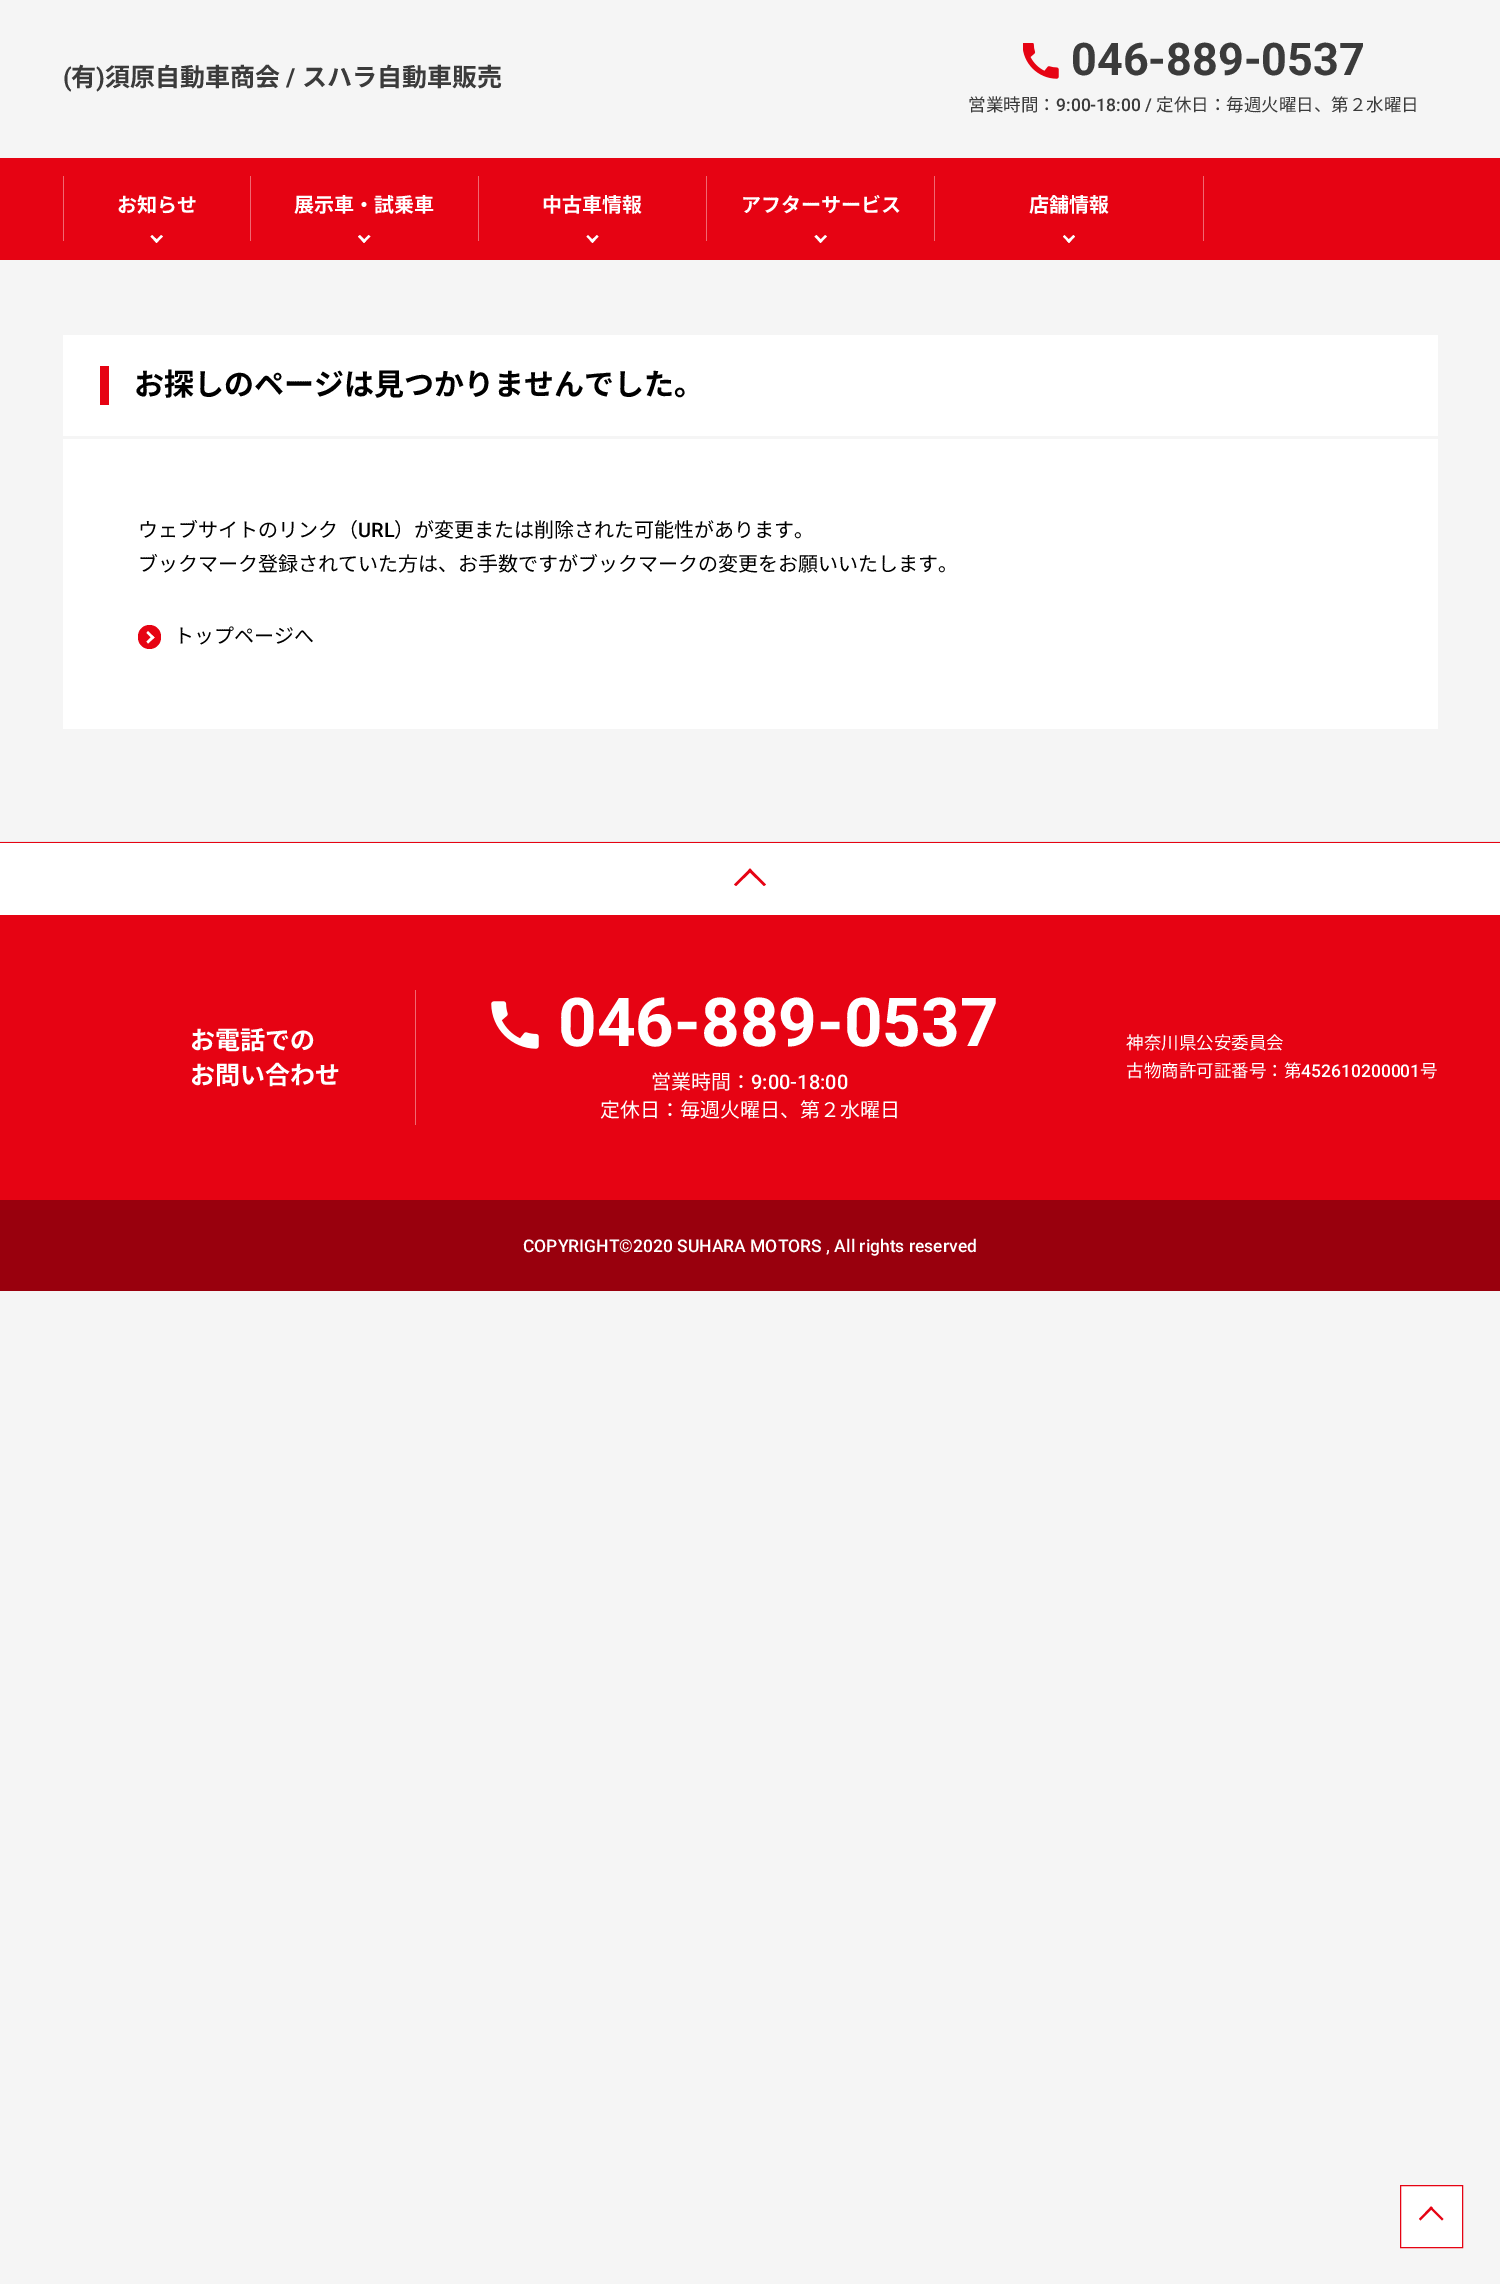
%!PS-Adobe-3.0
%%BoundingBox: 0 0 1500 2284
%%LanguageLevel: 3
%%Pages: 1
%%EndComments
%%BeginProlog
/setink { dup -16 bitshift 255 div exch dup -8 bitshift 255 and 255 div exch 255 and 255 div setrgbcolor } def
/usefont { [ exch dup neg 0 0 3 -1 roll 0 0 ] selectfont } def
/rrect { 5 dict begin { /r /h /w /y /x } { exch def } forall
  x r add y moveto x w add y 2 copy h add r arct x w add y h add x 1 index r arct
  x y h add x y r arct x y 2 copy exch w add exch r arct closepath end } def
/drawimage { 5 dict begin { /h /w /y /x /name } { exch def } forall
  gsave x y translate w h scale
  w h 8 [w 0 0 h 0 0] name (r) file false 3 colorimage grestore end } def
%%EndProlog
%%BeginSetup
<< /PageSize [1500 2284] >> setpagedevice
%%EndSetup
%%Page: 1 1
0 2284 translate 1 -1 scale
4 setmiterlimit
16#F5F5F5 setink
0 0 1500 2284 rectfill
/Roboto-Bold 25 usefont
16#3B3B3B setink
63 86 moveto (\() show
/NotoSansJP-Bold 25 usefont
71 86 moveto (有) show
/Roboto-Bold 25 usefont
96 86 moveto (\)) show
/NotoSansJP-Bold 25 usefont
105 86 moveto (須原自動車商会) show
/Roboto-Bold 25 usefont
286 86 moveto (/) show
/NotoSansJP-Bold 25 usefont
302 86 moveto (スハラ自動車販売) show
(img1.raw) 1023 43 36 36 drawimage
/Roboto-Bold 45 usefont
1071 75 moveto (046-889-0537) show
/NotoSansJP-Regular 17.5 usefont
968 111 moveto (営業時間：) show
/Roboto-Medium 17.5 usefont
1056 111 moveto (9:00-18:00 /) show
/NotoSansJP-Regular 17.5 usefont
1156 111 moveto (定休日：毎週火曜日、第２水曜日) show
16#FFFFFF setink
1400.5 2185.5 moveto 1462.5 2185.5 lineto 1462.5 2247.5 lineto 1400.5 2247.5 lineto closepath gsave fill grestore
16#E60313 setink
stroke
1419 2219 moveto 1431 2206.5 lineto 1433 2208 lineto 1420.5 2220.5 lineto closepath fill
1429.5 2208 moveto 1431 2206.5 lineto 1443.5 2219 lineto 1442 2220.5 lineto closepath fill
0 158 1500 102 rectfill
16#F06871 setink
63 176 1 65 rectfill
/NotoSansJP-Bold 20 usefont
16#FFFFFF setink
117 212 moveto (お知らせ) show
163 236.5 moveto 156.5 243 lineto 155 241 lineto 161 235 lineto closepath fill
158.5 241 moveto 156.5 243 lineto 150.5 236.5 lineto 152 235 lineto closepath fill
16#F06871 setink
250 176 1 65 rectfill
16#FFFFFF setink
294 212 moveto (展示車・試乗車) show
370.5 236.5 moveto 364 243 lineto 362.5 241 lineto 368.5 235 lineto closepath fill
366 241 moveto 364 243 lineto 358 236.5 lineto 360 235 lineto closepath fill
16#F06871 setink
478 176 1 65 rectfill
16#FFFFFF setink
542 212 moveto (中古車情報) show
598.5 236.5 moveto 592.5 243 lineto 590.5 241 lineto 597 235 lineto closepath fill
594 241 moveto 592.5 243 lineto 586.5 236.5 lineto 588 235 lineto closepath fill
16#F06871 setink
706 176 1 65 rectfill
16#FFFFFF setink
741 212 moveto (アフターサービス) show
827 236.5 moveto 820.5 243 lineto 819 241 lineto 825 235 lineto closepath fill
822.5 241 moveto 820.5 243 lineto 814.5 236.5 lineto 816.5 235 lineto closepath fill
16#F06871 setink
1203 176 1 65 rectfill
934 176 1 65 rectfill
16#FFFFFF setink
1029 212 moveto (店舗情報) show
1075 236.5 moveto 1069 243 lineto 1067 241 lineto 1073.5 235 lineto closepath fill
1070.5 241 moveto 1069 243 lineto 1063 236.5 lineto 1064.5 235 lineto closepath fill
63 335 1375 101 rectfill
16#E60313 setink
100 366 9 39 rectfill
/NotoSansJP-Bold 30 usefont
16#000000 setink
134 395 moveto (お探しのページは見つかりませんでした。) show
16#FFFFFF setink
63 439 1375 290 rectfill
/NotoSansJP-Regular 20 usefont
16#000000 setink
138 537 moveto (ウェブサイトのリンク（) show
/Roboto-Medium 20 usefont
358 537 moveto (URL) show
/NotoSansJP-Regular 20 usefont
394 537 moveto (）が変更または削除された可能性があります。) show
138 571 moveto (ブックマーク登録されていた方は、お手数ですがブックマークの変更をお願いいたします。) show
16#E60313 setink
138 625 23 24 11.5 rrect fill
16#000000 setink
174 643 moveto (トップページへ) show
16#FFFFFF setink
148 631 moveto 154.5 637.5 lineto 152.5 639 lineto 146.5 633 lineto closepath fill
152.5 635.5 moveto 154.5 637.5 lineto 148 643.5 lineto 146.5 641.5 lineto closepath fill
[
    [0 842 1500 358 16#E60313]
    [0 841 1500 1 16#E9E9E9]
    [0 843 1500 72 16#FFFFFF]
] { aload pop setink rectfill } forall
16#E60313 setink
734 884.5 moveto 750 868.5 lineto 752 870.5 lineto 736 886 lineto closepath fill
748 870.5 moveto 750 868.5 lineto 766 884.5 lineto 764 886 lineto closepath fill
/NotoSansJP-Bold 25 usefont
16#FFFFFF setink
190 1049 moveto (お電話での) show
190 1084 moveto (お問い合わせ) show
16#F06871 setink
415 990 1 135 rectfill
(img2.raw) 491 1001 48 48 drawimage
/Roboto-Bold 67.5 usefont
16#FFFFFF setink
558 1046 moveto (046-889-0537) show
/NotoSansJP-Regular 20 usefont
651 1089 moveto (営業時間：) show
/Roboto-Medium 20 usefont
751 1089 moveto (9:00-18:00) show
/NotoSansJP-Regular 20 usefont
600 1117 moveto (定休日：毎週火曜日、第２水曜日) show
/NotoSansJP-Regular 17.5 usefont
1126 1049 moveto (神奈川県公安委員会) show
1126 1077 moveto (古物商許可証番号：第) show
/Roboto-Medium 17.5 usefont
1301 1077 moveto (452610200001) show
/NotoSansJP-Regular 17.5 usefont
1420 1077 moveto (号) show
16#99000D setink
0 1200 1500 91 rectfill
/Roboto-Medium 17.5 usefont
16#FFFFFF setink
523 1252 moveto (COPYRIGHT©2020 SUHARA MOTORS , All rights reserved) show
showpage
%%EOF
